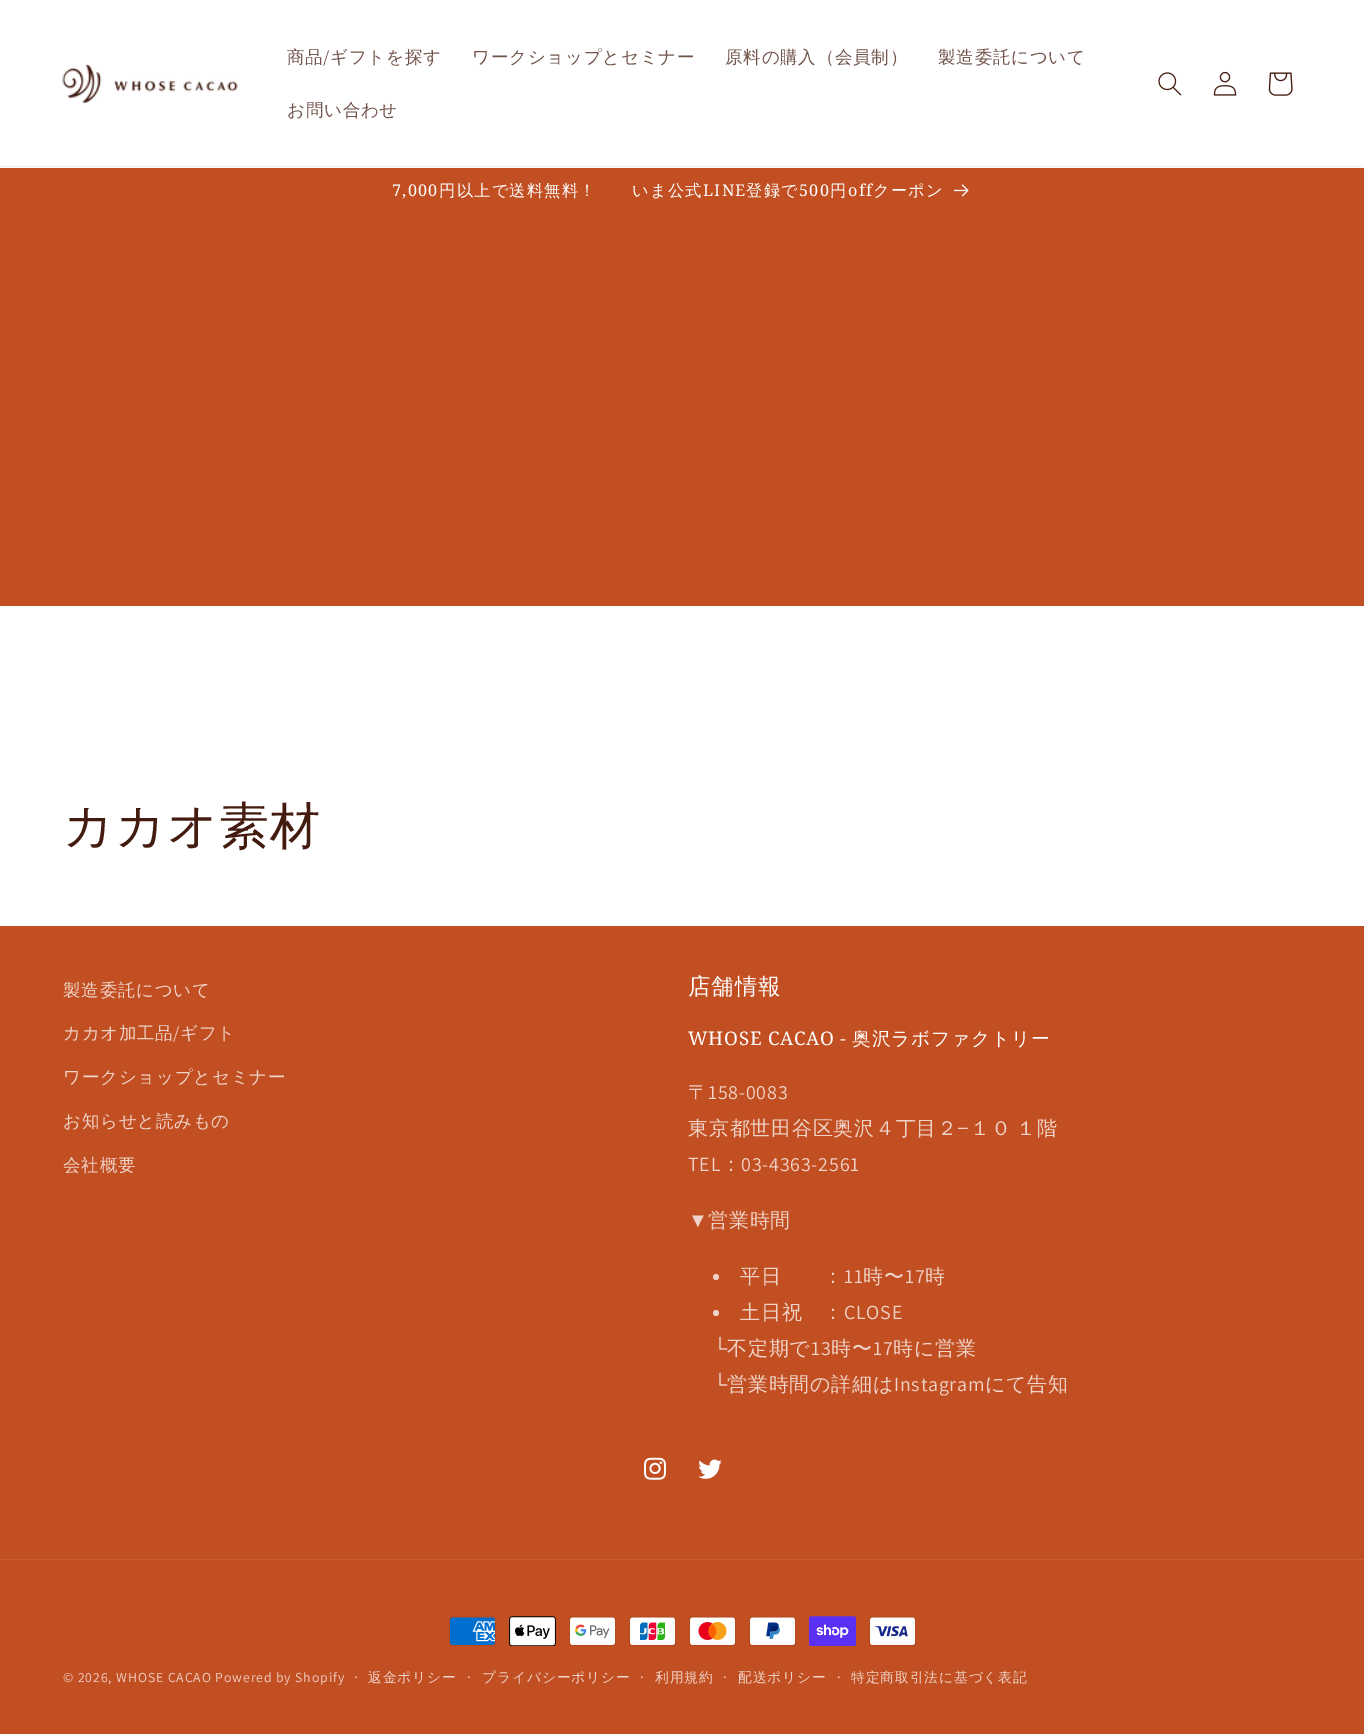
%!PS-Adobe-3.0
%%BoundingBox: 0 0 1364 1734
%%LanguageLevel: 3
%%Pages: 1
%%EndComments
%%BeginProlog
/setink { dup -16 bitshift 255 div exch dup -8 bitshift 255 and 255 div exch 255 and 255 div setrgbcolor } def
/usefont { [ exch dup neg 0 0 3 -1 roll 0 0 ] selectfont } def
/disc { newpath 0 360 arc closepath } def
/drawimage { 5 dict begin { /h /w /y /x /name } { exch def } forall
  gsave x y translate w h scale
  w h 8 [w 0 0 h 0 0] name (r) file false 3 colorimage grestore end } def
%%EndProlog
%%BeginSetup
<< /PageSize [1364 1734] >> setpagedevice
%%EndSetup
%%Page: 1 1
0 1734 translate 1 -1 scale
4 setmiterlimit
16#FFFFFF setink
0 0 1364 1734 rectfill
16#F0EDEC setink
0 166 1364 1 rectfill
(img1.raw) 62 64 176 40 drawimage
/WenQuanYiZenHei-Medium 17.5 usefont
16#72544B setink
287 63 moveto 0.75 0 (商品) ashow
/Assistant-Regular 17.5 usefont
323 63 moveto 0.75 0 (/) ashow
/WenQuanYiZenHei-Medium 17.5 usefont
330 63 moveto 0.75 0 (ギフトを探す) ashow
472 63 moveto 0.75 0 (ワークショップとセミナー) ashow
725 63 moveto 0.75 0 (原料の購入（会員制）) ashow
938 63 moveto 0.75 0 (製造委託について) ashow
287 116 moveto 0.75 0 (お問い合わせ) ashow
(img2.raw) 1158 72 24 24 drawimage
(img3.raw) 1213 71 24 25 drawimage
(img4.raw) 1268 72 25 24 drawimage
16#C24F22 setink
0 168 1364 438 rectfill
/NotoSerif-Regular 16.25 usefont
16#FFFFFF setink
392 196 moveto 1.25 0 (7,000) ashow
/WenQuanYiZenHei-Medium 16.25 usefont
439 196 moveto 1.25 0 (円以上で送料無料！　　いま公式) ashow
/NotoSerif-Regular 16.25 usefont
703 196 moveto 1.25 0 (LINE) ashow
/WenQuanYiZenHei-Medium 16.25 usefont
746 196 moveto 1.25 0 (登録で) ashow
/NotoSerif-Regular 16.25 usefont
799 196 moveto 1.25 0 (500) ashow
/WenQuanYiZenHei-Medium 16.25 usefont
830 196 moveto 1.25 0 (円) ashow
/NotoSerif-Regular 16.25 usefont
848 196 moveto 1.25 0 (off) ashow
/WenQuanYiZenHei-Medium 16.25 usefont
873 196 moveto 1.25 0 (クーポン) ashow
(img5.raw) 954 184 15 13 drawimage
/WenQuanYiZenHei-Medium 50 usefont
16#431B0F setink
63 843 moveto 0.75 0 (カカオ素材) ashow
16#C24F22 setink
0 926 1364 808 rectfill
/WenQuanYiZenHei-Medium 17.5 usefont
16#F0D3C8 setink
63 996 moveto 0.75 0 (製造委託について) ashow
63 1039 moveto 0.75 0 (カカオ加工品) ashow
/Assistant-Regular 17.5 usefont
173 1039 moveto 0.75 0 (/) ashow
/WenQuanYiZenHei-Medium 17.5 usefont
180 1039 moveto 0.75 0 (ギフト) ashow
63 1083 moveto 0.75 0 (ワークショップとセミナー) ashow
63 1127 moveto 0.75 0 (お知らせと読みもの) ashow
63 1171 moveto 0.75 0 (会社概要) ashow
/WenQuanYiZenHei-Medium 22.5 usefont
16#FFFFFF setink
688 994 moveto 0.75 0 (店舗情報) ashow
/NotoSerif-Regular 18.75 usefont
688 1045 moveto 0.75 0 (WHOSE CACAO -) ashow
/WenQuanYiZenHei-Medium 18.75 usefont
852 1045 moveto 0.75 0 (奥沢ラボファクトリー) ashow
/WenQuanYiZenHei-Medium 20 usefont
16#F0D3C8 setink
688 1099 moveto 0.75 0 (〒) ashow
/Assistant-Regular 20 usefont
708 1099 moveto 0.75 0 (158-0083) ashow
/WenQuanYiZenHei-Medium 20 usefont
688 1135 moveto 0.75 0 (東京都世田谷区奥沢４丁目２) ashow
/LiberationSans-Regular 20 usefont
957 1135 moveto 0.75 0 (−) ashow
/WenQuanYiZenHei-Medium 20 usefont
970 1135 moveto -2 0 32 0.75 0 (１０ １階) awidthshow
/Assistant-Regular 20 usefont
688 1171 moveto 0.75 0 (TEL) ashow
/WenQuanYiZenHei-Medium 20 usefont
721 1171 moveto 0.75 0 (：) ashow
/Assistant-Regular 20 usefont
741 1171 moveto 0.75 0 (03-4363-2561) ashow
/LiberationSans-Regular 20 usefont
688 1227 moveto 0.75 0 (▼) ashow
/WenQuanYiZenHei-Medium 20 usefont
708 1227 moveto 0.75 0 (営業時間) ashow
716 1277 3 disc fill
740 1283 moveto 0.75 0 (平日　　：) ashow
/Assistant-Regular 20 usefont
844 1283 moveto 0.75 0 (11) ashow
/WenQuanYiZenHei-Medium 20 usefont
863 1283 moveto 0.75 0 (時〜) ashow
/Assistant-Regular 20 usefont
905 1283 moveto 0.75 0 (17) ashow
/WenQuanYiZenHei-Medium 20 usefont
925 1283 moveto 0.75 0 (時) ashow
716 1313 3 disc fill
740 1319 moveto 0.75 0 (土日祝　：) ashow
/Assistant-Regular 20 usefont
844 1319 moveto 0.75 0 (CLOSE) ashow
/LiberationSans-Regular 20 usefont
713 1355 moveto 0.75 0 (└) ashow
/WenQuanYiZenHei-Medium 20 usefont
727 1355 moveto 0.75 0 (不定期で) ashow
/Assistant-Regular 20 usefont
811 1355 moveto 0.75 0 (13) ashow
/WenQuanYiZenHei-Medium 20 usefont
831 1355 moveto 0.75 0 (時〜) ashow
/Assistant-Regular 20 usefont
873 1355 moveto 0.75 0 (17) ashow
/WenQuanYiZenHei-Medium 20 usefont
893 1355 moveto 0.75 0 (時に営業) ashow
/LiberationSans-Regular 20 usefont
713 1391 moveto 0.75 0 (└) ashow
/WenQuanYiZenHei-Medium 20 usefont
727 1391 moveto 0.75 0 (営業時間の詳細は) ashow
/Assistant-Regular 20 usefont
894 1391 moveto 0.75 0 (Instagram) ashow
/WenQuanYiZenHei-Medium 20 usefont
985 1391 moveto 0.75 0 (にて告知) ashow
(img6.raw) 644 1457 22 23 drawimage
(img7.raw) 698 1459 24 20 drawimage
16#C75D34 setink
0 1559 1364 1 rectfill
(img8.raw) 449 1616 47 30 drawimage
(img9.raw) 509 1616 47 30 drawimage
(img10.raw) 569 1616 47 30 drawimage
(img11.raw) 629 1616 47 30 drawimage
(img12.raw) 689 1616 47 30 drawimage
(img13.raw) 749 1616 47 30 drawimage
(img14.raw) 809 1616 47 30 drawimage
(img15.raw) 869 1616 47 30 drawimage
/Assistant-Regular 13.75 usefont
16#F0D3C8 setink
63 1682 moveto 0.9 0 (© 2026, WHOSE CACAO Powered by Shopify) ashow
/Assistant-Regular 15 usefont
354 1682 moveto 0.9 0 (·) ashow
/WenQuanYiZenHei-Medium 13.75 usefont
368 1682 moveto 0.9 0 (返金ポリシー) ashow
/Assistant-Regular 15 usefont
467 1682 moveto 0.9 0 (·) ashow
/WenQuanYiZenHei-Medium 13.75 usefont
482 1682 moveto 0.9 0 (プライバシーポリシー) ashow
/Assistant-Regular 15 usefont
640 1682 moveto 0.9 0 (·) ashow
/WenQuanYiZenHei-Medium 13.75 usefont
655 1682 moveto 0.9 0 (利用規約) ashow
/Assistant-Regular 15 usefont
723 1682 moveto 0.9 0 (·) ashow
/WenQuanYiZenHei-Medium 13.75 usefont
738 1682 moveto 0.9 0 (配送ポリシー) ashow
/Assistant-Regular 15 usefont
837 1682 moveto 0.9 0 (·) ashow
/WenQuanYiZenHei-Medium 13.75 usefont
851 1682 moveto 0.9 0 (特定商取引法に基づく表記) ashow
showpage
%%EOF
